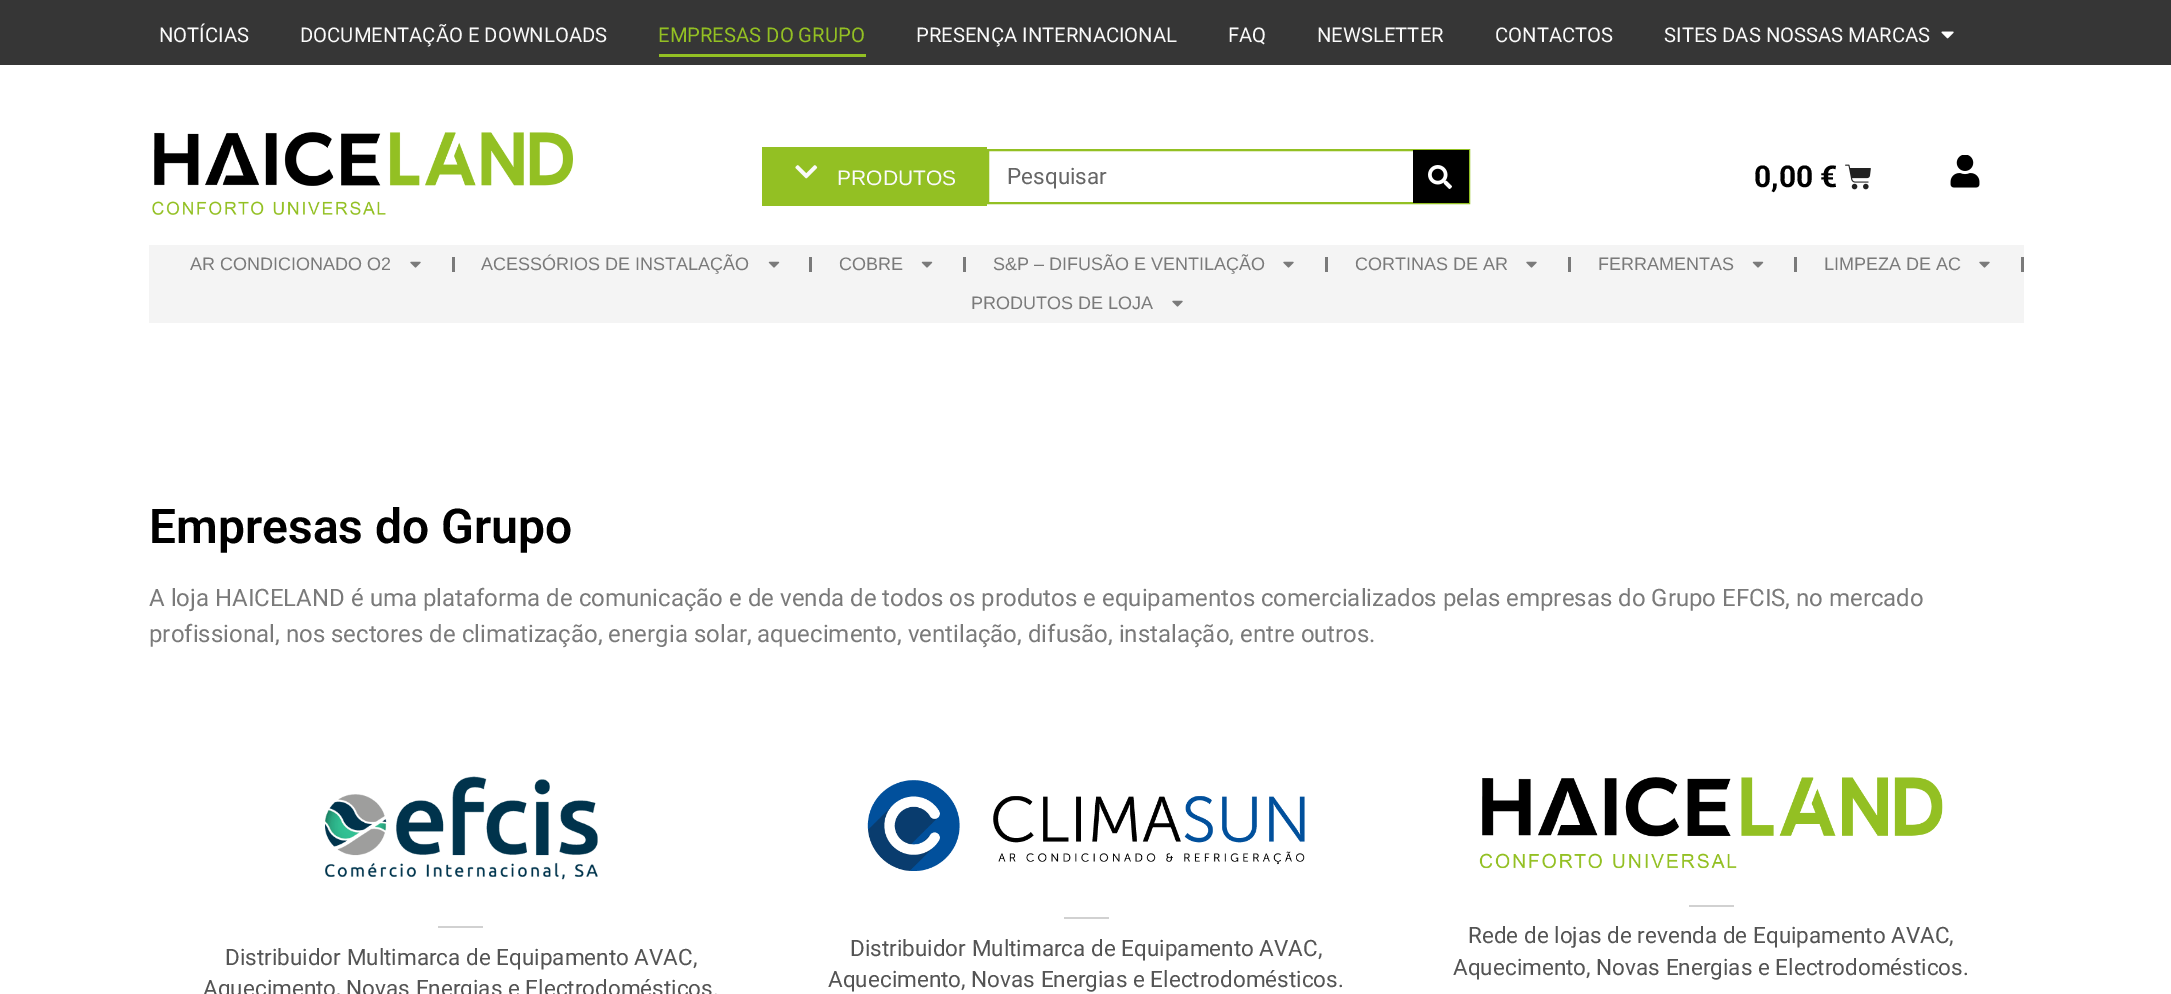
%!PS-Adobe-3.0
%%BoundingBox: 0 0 2171 994
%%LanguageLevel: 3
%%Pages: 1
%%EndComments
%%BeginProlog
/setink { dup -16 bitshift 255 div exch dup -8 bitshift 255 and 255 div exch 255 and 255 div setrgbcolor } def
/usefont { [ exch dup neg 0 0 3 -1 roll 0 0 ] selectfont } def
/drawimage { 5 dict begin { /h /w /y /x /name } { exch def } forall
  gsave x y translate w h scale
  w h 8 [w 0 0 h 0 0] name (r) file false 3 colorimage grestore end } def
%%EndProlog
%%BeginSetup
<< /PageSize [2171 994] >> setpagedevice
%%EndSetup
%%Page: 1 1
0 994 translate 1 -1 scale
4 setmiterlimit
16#FFFFFF setink
0 0 2171 994 rectfill
16#363636 setink
0 0 2171 65 rectfill
/Roboto-Regular 20.25 usefont
16#FAFAFA setink
159 42 moveto (NOTÍCIAS) show
300 42 moveto (DOCUMENTAÇÃO E DOWNLOADS) show
16#93C023 setink
658 42 moveto (EMPRESAS DO GRUPO) show
659 54 207 3 rectfill
16#FAFAFA setink
[
    [(PRESENÇA INTERNACIONAL) 916 42]
    [(FAQ) 1228 42]
    [(NEWSLETTER) 1317 42]
    [(CONTACTOS) 1495 42]
    [(SITES DAS NOSSAS MARCAS) 1664 42]
] { aload pop moveto show } forall
(img1.raw) 1941 31 13 8 drawimage
(img2.raw) 152 132 421 83 drawimage
16#93C023 setink
762 147 225 59 rectfill
(img3.raw) 795 165 23 14 drawimage
/LiberationSans-Regular 21 usefont
16#FAFAFA setink
837 185 moveto (PRODUTOS) show
16#93C023 setink
2 setlinewidth
988 150 481 53 rectstroke
/Roboto-Regular 22.5 usefont
16#666666 setink
1007 184 moveto (Pesquisar) show
16#000000 setink
1413 150 56 53 rectfill
(img4.raw) 1428 165 24 24 drawimage
/Roboto-Bold 30 usefont
1754 187 moveto (0,00 €) show
(img5.raw) 1845 164 26 26 drawimage
(img6.raw) 1950 155 30 33 drawimage
16#F4F4F4 setink
149 245 1875 78 rectfill
/LiberationSans-Regular 18 usefont
16#7A7A7A setink
190 270 moveto (AR CONDICIONADO O2) show
(img7.raw) 410 261 11 7 drawimage
452 257 3 15 rectfill
481 270 moveto (ACESSÓRIOS DE INSTALAÇÃO) show
(img8.raw) 768 261 12 7 drawimage
809 257 3 15 rectfill
839 270 moveto (COBRE) show
(img8.raw) 921 261 12 7 drawimage
963 257 3 15 rectfill
993 270 moveto (S&P – DIFUSÃO E VENTILAÇÃO) show
(img7.raw) 1283 261 11 7 drawimage
1325 257 3 15 rectfill
1355 270 moveto (CORTINAS DE AR) show
(img7.raw) 1526 261 11 7 drawimage
1568 257 3 15 rectfill
1598 270 moveto (FERRAMENTAS) show
(img8.raw) 1752 261 12 7 drawimage
1794 257 3 15 rectfill
1824 270 moveto (LIMPEZA DE AC) show
(img7.raw) 1979 261 11 7 drawimage
2021 257 3 15 rectfill
971 309 moveto (PRODUTOS DE LOJA) show
(img7.raw) 1172 300 11 7 drawimage
/Roboto-SemiBold 48 usefont
16#000000 setink
149 543 moveto (Empresas do Grupo) show
/Roboto-Regular 24 usefont
16#7A7A7A setink
149 606 moveto (A loja HAICELAND é uma plataforma de comunicação e de venda de todos os produtos e equipamentos comercializados pelas empresas do Grupo EFCIS, no mercado) show
149 642 moveto (profissional, nos sectores de climatização, energia solar, aquecimento, ventilação, difusão, instalação, entre outros.) show
(img9.raw) 325 776 273 104 drawimage
16#D1D1D1 setink
438 926 45 2 rectfill
/Roboto-Regular 22.5 usefont
16#545454 setink
225 965 moveto (Distribuidor Multimarca de Equipamento AVAC,) show
203 996 moveto (Aquecimento, Novas Energias e Electrodomésticos.) show
(img10.raw) 867 780 438 91 drawimage
16#D1D1D1 setink
1064 917 45 2 rectfill
16#545454 setink
850 956 moveto (Distribuidor Multimarca de Equipamento AVAC,) show
828 987 moveto (Aquecimento, Novas Energias e Electrodomésticos.) show
(img11.raw) 1479 777 464 92 drawimage
16#D1D1D1 setink
1689 905 45 2 rectfill
16#545454 setink
1468 943 moveto (Rede de lojas de revenda de Equipamento AVAC,) show
1453 975 moveto (Aquecimento, Novas Energias e Electrodomésticos.) show
showpage
%%EOF
